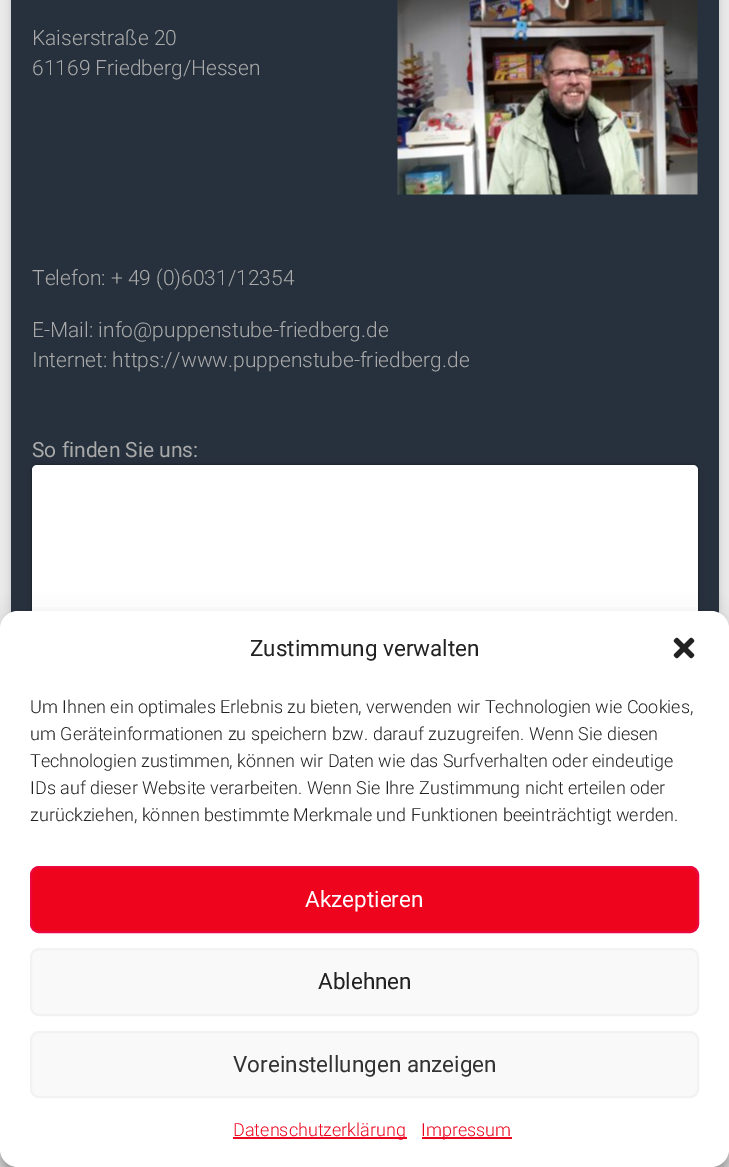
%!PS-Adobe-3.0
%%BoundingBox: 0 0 729 1167
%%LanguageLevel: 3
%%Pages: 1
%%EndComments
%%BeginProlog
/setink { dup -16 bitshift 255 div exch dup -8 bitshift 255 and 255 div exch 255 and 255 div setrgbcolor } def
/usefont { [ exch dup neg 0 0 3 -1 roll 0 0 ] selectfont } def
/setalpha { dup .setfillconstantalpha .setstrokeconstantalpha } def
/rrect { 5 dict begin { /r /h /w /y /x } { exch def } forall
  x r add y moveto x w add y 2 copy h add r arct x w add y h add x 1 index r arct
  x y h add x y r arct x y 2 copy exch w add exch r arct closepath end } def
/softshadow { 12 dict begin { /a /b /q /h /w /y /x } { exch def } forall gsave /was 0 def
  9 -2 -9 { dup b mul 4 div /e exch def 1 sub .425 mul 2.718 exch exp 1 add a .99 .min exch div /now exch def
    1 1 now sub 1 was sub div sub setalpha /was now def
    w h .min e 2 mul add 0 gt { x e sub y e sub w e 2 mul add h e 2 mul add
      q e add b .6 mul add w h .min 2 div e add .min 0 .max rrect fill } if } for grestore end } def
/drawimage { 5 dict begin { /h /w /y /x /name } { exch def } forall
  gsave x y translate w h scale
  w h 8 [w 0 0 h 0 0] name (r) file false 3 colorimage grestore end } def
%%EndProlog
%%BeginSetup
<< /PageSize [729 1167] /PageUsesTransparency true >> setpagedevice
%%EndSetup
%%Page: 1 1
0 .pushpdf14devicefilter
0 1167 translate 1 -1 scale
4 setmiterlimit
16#EAEAEA setink
0 0 729 1167 rectfill
16#646464 setink
11 -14 708 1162 0 4.5 0.3 softshadow
16#27313D setink
11 0 708 613 rectfill
/Roboto-Light 21 usefont
16#AAAAAA setink
32 45 moveto (Kaiserstraße 20) show
32 75 moveto (61169 Friedberg/Hessen) show
(img1.raw) 397 0 301 195 drawimage
[
    [(Telefon: + 49 \(0\)6031/12354) 32 285]
    [(E-Mail: info@puppenstube-friedberg.de) 32 337]
    [(Internet: https://www.puppenstube-friedberg.de) 32 367]
] { aload pop moveto show } forall
/Roboto-Regular 21 usefont
32 457 moveto (So finden Sie uns:) show
16#000000 setink
32 467 666 525 5 7.5 0.15 softshadow
32 465 666 525 5 1 0.5 softshadow
16#FFFFFF setink
32 465 666 525 5 rrect fill
16#000000 setink
0 620 729 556 18 4.5 0.23 softshadow
0 626 729 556 18 15 0.19 softshadow
16#FFFFFF setink
0 611 729 556 18 rrect fill
/Roboto-Regular 22.5 usefont
16#222222 setink
250 656 moveto (Zustimmung verwalten) show
(img2.raw) 673 637 22 22 drawimage
/Roboto-Light 18 usefont
[
    [(Um Ihnen ein optimales Erlebnis zu bieten, verwenden wir Technologien wie Cookies,) 30 713]
    [(um Geräteinformationen zu speichern bzw. darauf zuzugreifen. Wenn Sie diesen) 30 740]
    [(Technologien zustimmen, können wir Daten wie das Surfverhalten oder eindeutige) 30 767]
    [(IDs auf dieser Website verarbeiten. Wenn Sie Ihre Zustimmung nicht erteilen oder) 30 794]
    [(zurückziehen, können bestimmte Merkmale und Funktionen beeinträchtigt werden.) 30 821]
] { aload pop moveto show } forall
16#EF041D setink
31 867 667 65 8 rrect gsave fill grestore
16#EC063E setink
2 setlinewidth
stroke
/Roboto-Regular 22.5 usefont
16#FFFFFF setink
305 907 moveto (Akzeptieren) show
16#F9F9F9 setink
31 949 667 66 8 rrect gsave fill grestore
16#F2F2F2 setink
stroke
16#222222 setink
318 989 moveto (Ablehnen) show
16#F9F9F9 setink
31 1032 667 65 8 rrect gsave fill grestore
16#F2F2F2 setink
stroke
16#333333 setink
233 1072 moveto (Voreinstellungen anzeigen) show
16#EC0620 setink
233 1137 174 2 rectfill
/Roboto-Light 18 usefont
233 1136 moveto (Datenschutzerklärung) show
422 1137 90 2 rectfill
421 1136 moveto (Impressum) show
.poppdf14devicefilter showpage
%%EOF
